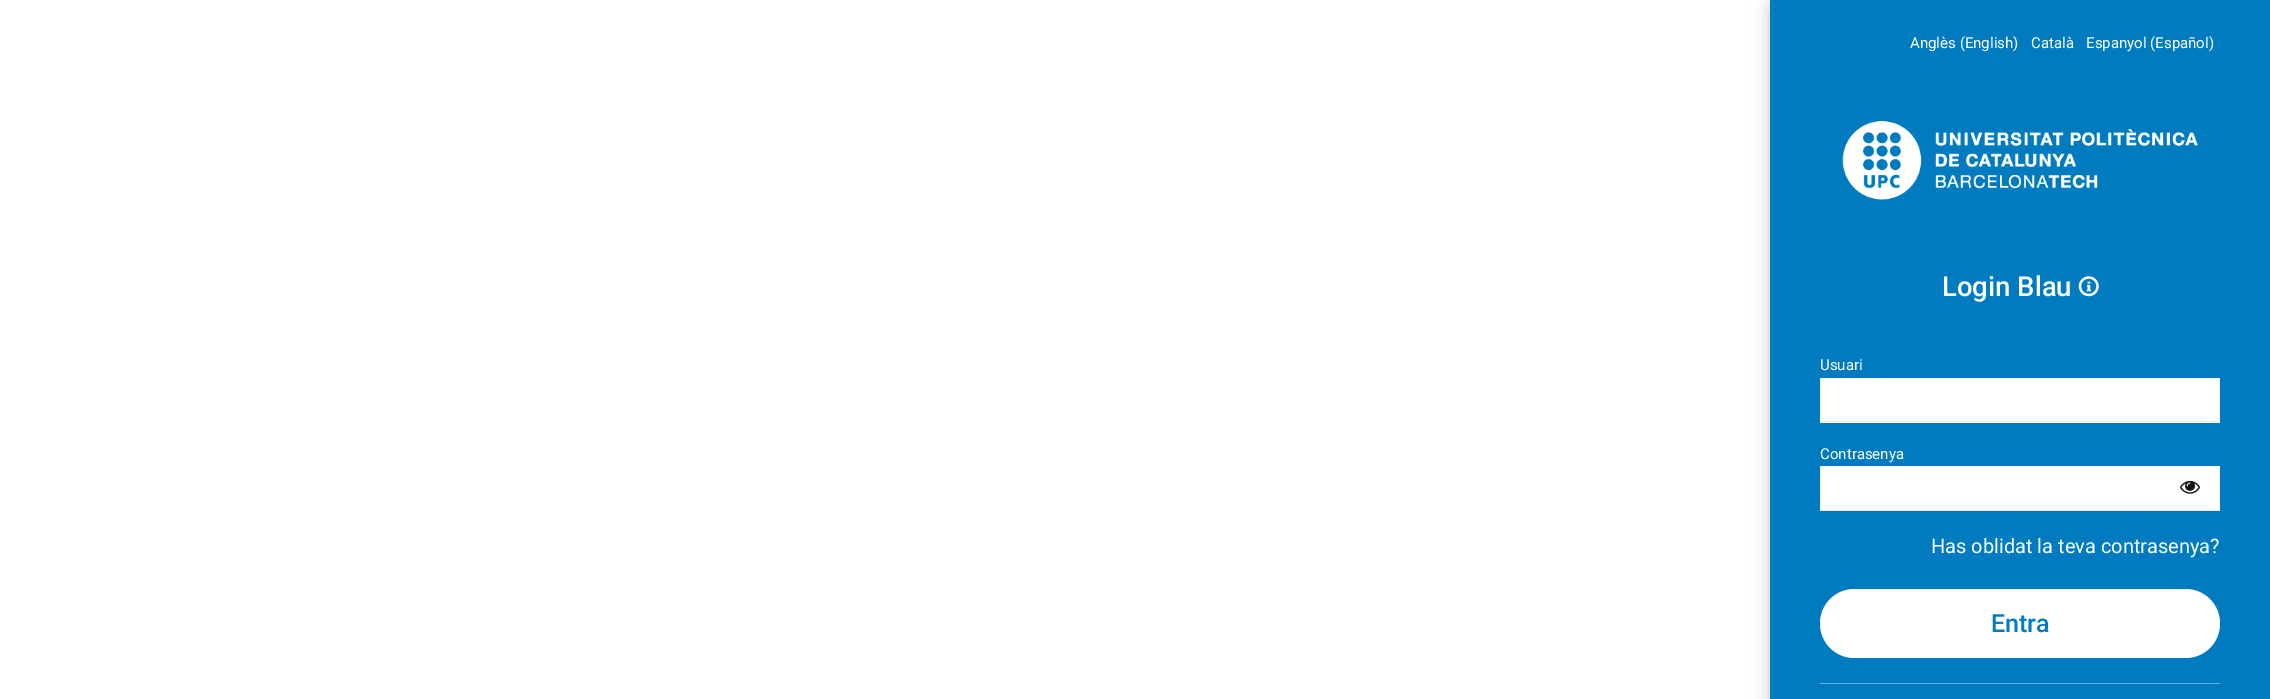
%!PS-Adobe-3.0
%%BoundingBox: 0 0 2270 699
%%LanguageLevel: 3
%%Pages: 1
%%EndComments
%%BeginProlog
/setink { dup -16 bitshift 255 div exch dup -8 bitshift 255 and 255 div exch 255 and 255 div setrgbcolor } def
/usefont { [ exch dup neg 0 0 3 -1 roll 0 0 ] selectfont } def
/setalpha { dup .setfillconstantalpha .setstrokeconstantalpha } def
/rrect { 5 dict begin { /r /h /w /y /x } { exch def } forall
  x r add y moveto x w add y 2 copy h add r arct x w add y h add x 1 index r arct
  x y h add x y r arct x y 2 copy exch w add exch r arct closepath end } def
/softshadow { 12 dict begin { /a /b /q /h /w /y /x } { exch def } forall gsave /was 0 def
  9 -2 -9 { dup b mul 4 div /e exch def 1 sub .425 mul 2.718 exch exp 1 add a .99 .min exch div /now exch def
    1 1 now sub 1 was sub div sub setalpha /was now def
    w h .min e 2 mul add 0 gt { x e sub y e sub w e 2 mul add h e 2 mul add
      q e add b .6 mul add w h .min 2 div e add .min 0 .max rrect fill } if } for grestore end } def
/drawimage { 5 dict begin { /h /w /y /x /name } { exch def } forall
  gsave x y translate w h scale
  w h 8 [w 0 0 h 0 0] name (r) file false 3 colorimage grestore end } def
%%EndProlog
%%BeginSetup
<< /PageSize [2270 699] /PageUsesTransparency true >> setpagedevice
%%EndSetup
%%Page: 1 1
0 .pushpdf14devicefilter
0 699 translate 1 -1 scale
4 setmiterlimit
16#FFFFFF setink
0 0 2270 699 rectfill
16#030303 setink
1770 0 500 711 0 4 0.08 softshadow
1770 10 500 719 0 10 0.16 softshadow
16#007BC0 setink
1770 0 500 699 rectfill
/Roboto-Regular 15 usefont
16#FFFFFF setink
[
    [(Anglès \(English\)) 1910 48]
    [(Català) 2031 48]
    [(Espanyol \(Español\)) 2086 48]
] { aload pop moveto show } forall
(img1.raw) 1842 121 356 79 drawimage
/Roboto-Medium 27.5 usefont
1942 296 moveto (Login Blau) show
(img2.raw) 2078 276 21 21 drawimage
/Roboto-Regular 15 usefont
1820 370 moveto (Usuari) show
1820 378 400 45 rectfill
16#E9EDF2 setink
1820 421 400 1 rectfill
16#FFFFFF setink
1820 459 moveto (Contrasenya) show
1820 466 400 44 rectfill
(img3.raw) 2180 480 20 14 drawimage
16#E9EDF2 setink
1820 510 400 1 rectfill
/Roboto-Regular 20 usefont
16#FFFFFF setink
1931 553 moveto (Has oblidat la teva contrasenya?) show
1820 589 400 69 34.5 rrect fill
/Roboto-Medium 25 usefont
16#007BC0 setink
1991 632 moveto (Entra) show
16#66B0D9 setink
1820 683 400 1 rectfill
.poppdf14devicefilter showpage
%%EOF
